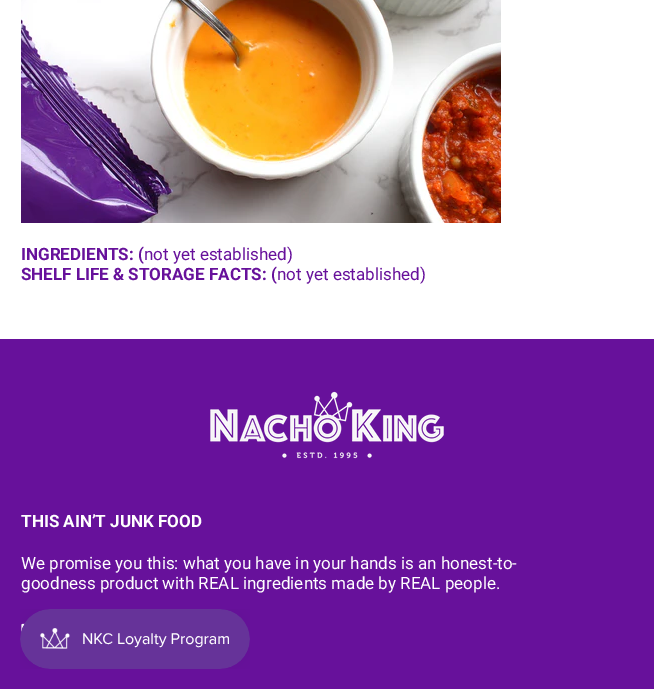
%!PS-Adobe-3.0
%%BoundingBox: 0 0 654 689
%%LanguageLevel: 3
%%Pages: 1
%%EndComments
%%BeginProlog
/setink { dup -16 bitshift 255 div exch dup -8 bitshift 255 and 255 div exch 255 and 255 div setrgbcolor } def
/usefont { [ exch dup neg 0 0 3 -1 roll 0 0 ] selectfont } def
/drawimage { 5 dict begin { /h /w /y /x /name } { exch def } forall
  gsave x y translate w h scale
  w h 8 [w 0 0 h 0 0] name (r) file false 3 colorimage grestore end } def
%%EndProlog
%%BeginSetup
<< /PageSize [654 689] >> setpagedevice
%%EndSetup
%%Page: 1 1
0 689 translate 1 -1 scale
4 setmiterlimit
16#67119B setink
0 0 654 689 rectfill
16#FFFFFF setink
0 0 654 339 rectfill
(img1.raw) 21 0 480 223 drawimage
/Roboto-Bold 17 usefont
16#67119B setink
21 260 moveto (INGREDIENTS: \() show
/Roboto-Regular 17 usefont
144 260 moveto (not yet established\)) show
/Roboto-Bold 17 usefont
21 280 moveto (SHELF LIFE & STORAGE FACTS: \() show
/Roboto-Regular 17 usefont
277 280 moveto (not yet established\)) show
(img2.raw) 210 391 234 68 drawimage
/Roboto-Bold 17 usefont
16#FFFFFF setink
21 527 moveto (THIS AIN’T JUNK FOOD) show
/Roboto-Regular 17 usefont
21 569 moveto (We promise you this: what you have in your hands is an honest-to-) show
21 589 moveto (goodness product with REAL ingredients made by REAL people.) show
(img3.raw) 21 623 4 9 drawimage
(img4.raw) 20 609 230 60 drawimage
showpage
%%EOF
